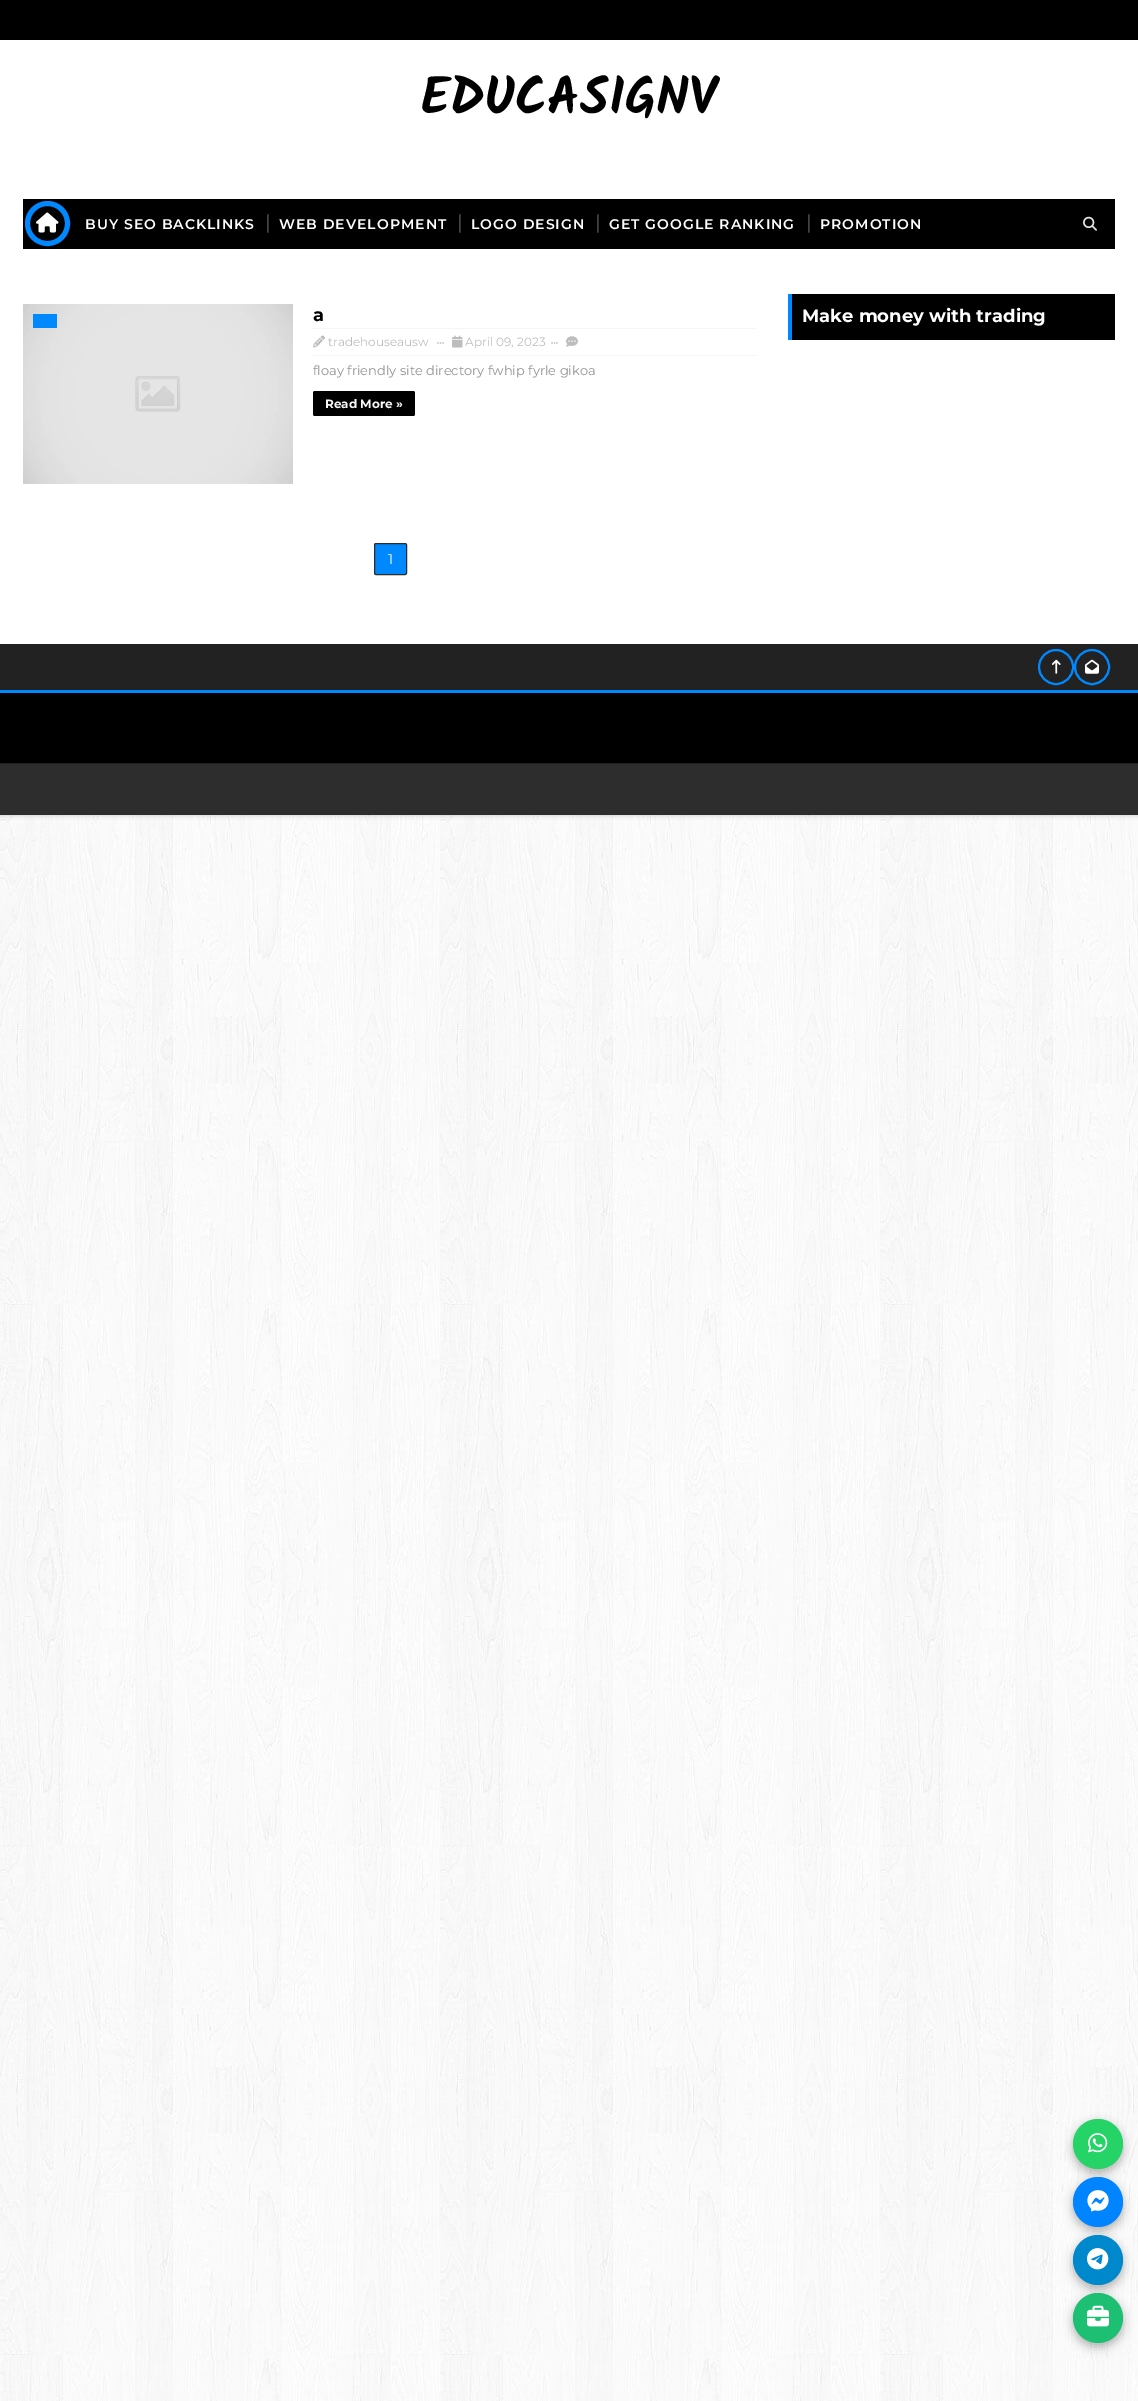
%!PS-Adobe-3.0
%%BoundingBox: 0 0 1138 2401
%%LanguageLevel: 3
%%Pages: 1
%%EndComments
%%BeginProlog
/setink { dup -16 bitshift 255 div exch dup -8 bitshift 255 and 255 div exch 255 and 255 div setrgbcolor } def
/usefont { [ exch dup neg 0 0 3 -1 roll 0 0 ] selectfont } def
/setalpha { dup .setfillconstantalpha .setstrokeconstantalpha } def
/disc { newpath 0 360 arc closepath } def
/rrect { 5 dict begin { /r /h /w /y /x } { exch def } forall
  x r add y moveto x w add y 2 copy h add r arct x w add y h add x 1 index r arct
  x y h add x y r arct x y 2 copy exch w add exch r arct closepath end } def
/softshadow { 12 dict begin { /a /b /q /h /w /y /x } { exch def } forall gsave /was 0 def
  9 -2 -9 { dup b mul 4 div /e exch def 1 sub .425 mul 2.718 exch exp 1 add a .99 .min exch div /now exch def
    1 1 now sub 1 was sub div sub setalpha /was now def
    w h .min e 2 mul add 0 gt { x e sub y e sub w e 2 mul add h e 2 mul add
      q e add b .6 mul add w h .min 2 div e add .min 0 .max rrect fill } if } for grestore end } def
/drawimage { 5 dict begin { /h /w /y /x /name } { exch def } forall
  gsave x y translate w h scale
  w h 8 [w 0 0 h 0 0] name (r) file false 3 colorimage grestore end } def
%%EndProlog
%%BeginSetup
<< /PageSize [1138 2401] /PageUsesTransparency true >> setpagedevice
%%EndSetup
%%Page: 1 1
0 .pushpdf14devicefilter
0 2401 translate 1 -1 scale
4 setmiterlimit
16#FFFFFF setink
0 0 1138 2401 rectfill
(img1.raw) 0 815 1138 1586 drawimage
16#000000 setink
0 0 1138 815 0 2.5 0.2 softshadow
16#FFFFFF setink
0 40 1138 604 rectfill
16#000000 setink
0 0 1138 40 rectfill
/Kalam-Bold 52 usefont
421 114 moveto (EDUCASIGNV) show
23 199 1092 50 rectfill
16#0088FF setink
5 setlinewidth
47.5 223.5 20 disc stroke
(img2.raw) 36 212 23 21 drawimage
/Montserrat-SemiBold 14 usefont
16#FFFFFF setink
85 229 moveto 1 0 (BUY SEO BACKLINKS) ashow
/Montserrat-Regular 20 usefont
16#5C5C5C setink
265 229 moveto (|) show
/Montserrat-SemiBold 14 usefont
16#FFFFFF setink
279 229 moveto 1 0 (WEB DEVELOPMENT) ashow
/Montserrat-Regular 20 usefont
16#5C5C5C setink
457 229 moveto (|) show
/Montserrat-SemiBold 14 usefont
16#FFFFFF setink
471 229 moveto 1 0 (LOGO DESIGN) ashow
/Montserrat-Regular 20 usefont
16#5C5C5C setink
595 229 moveto (|) show
/Montserrat-SemiBold 14 usefont
16#FFFFFF setink
609 229 moveto 1 0 (GET GOOGLE RANKING) ashow
/Montserrat-Regular 20 usefont
16#5C5C5C setink
806 229 moveto (|) show
/Montserrat-SemiBold 14 usefont
16#FFFFFF setink
820 229 moveto 1 0 (PROMOTION) ashow
(img3.raw) 1083 216 14 15 drawimage
(img4.raw) 23 304 270 180 drawimage
16#0088FF setink
33 314 24 14 rectfill
/Montserrat-Bold 18 usefont
16#000000 setink
313 321 moveto (a) show
16#F5F5F5 setink
313 328 443 1 rectfill
313 355 443 1 rectfill
(img5.raw) 313 335 12 13 drawimage
/Montserrat-Regular 12 usefont
16#BDBDBD setink
328 346 moveto (tradehouseausw) show
(img6.raw) 437 342 7 2 drawimage
(img7.raw) 452 335 11 13 drawimage
465 346 moveto (April 09, 2023) show
(img6.raw) 551 342 7 2 drawimage
(img8.raw) 566 336 12 11 drawimage
/Montserrat-Regular 13 usefont
16#919191 setink
313 375 moveto (floay friendly site directory fwhip fyrle gikoa) show
16#000000 setink
313 391 102 25 2 rrect fill
/Montserrat-Bold 12 usefont
16#F7F7F7 setink
325 408 moveto (Read More ») show
16#0088FF setink
374.5 543.5 32 31 1.5 rrect gsave fill grestore
16#2D2D2D setink
1 setlinewidth
stroke
/Montserrat-Regular 14 usefont
16#FFFFFF setink
388 564 moveto (1) show
16#000000 setink
792 294 323 46 rectfill
16#0088FF setink
788 294 4 46 rectfill
/Montserrat-Bold 18 usefont
16#FFFFFF setink
802 322 moveto (Make money with trading) show
16#000000 setink
1073 2123 50 50 25 5 0.3 softshadow
16#25D366 setink
1098 2144 25 disc fill
(img9.raw) 1088 2133 20 20 drawimage
16#000000 setink
1073 2181 50 50 25 5 0.3 softshadow
16#0084FF setink
1098 2202 25 disc fill
(img10.raw) 1087 2190 22 22 drawimage
16#000000 setink
1073 2239 50 50 25 5 0.3 softshadow
16#0088CC setink
1098 2260 25 disc fill
(img11.raw) 1087 2248 22 22 drawimage
16#000000 setink
1073 2297 50 50 25 5 0.3 softshadow
16#1DBF73 setink
1098 2318 25 disc fill
(img12.raw) 1087 2305 22 22 drawimage
[
    [0 693 1138 70 16#000000]
    [0 763 1138 1 16#222222]
    [0 644 1138 46 16#222222]
    [0 690 1138 3 16#0088FF]
] { aload pop setink rectfill } forall
2 setlinewidth
1056 667 17 disc stroke
(img13.raw) 1051 659 10 15 drawimage
1092 667 17 disc stroke
(img14.raw) 1085 659 14 15 drawimage
16#2D2D2D setink
0 764 1138 51 rectfill
.poppdf14devicefilter showpage
%%EOF
